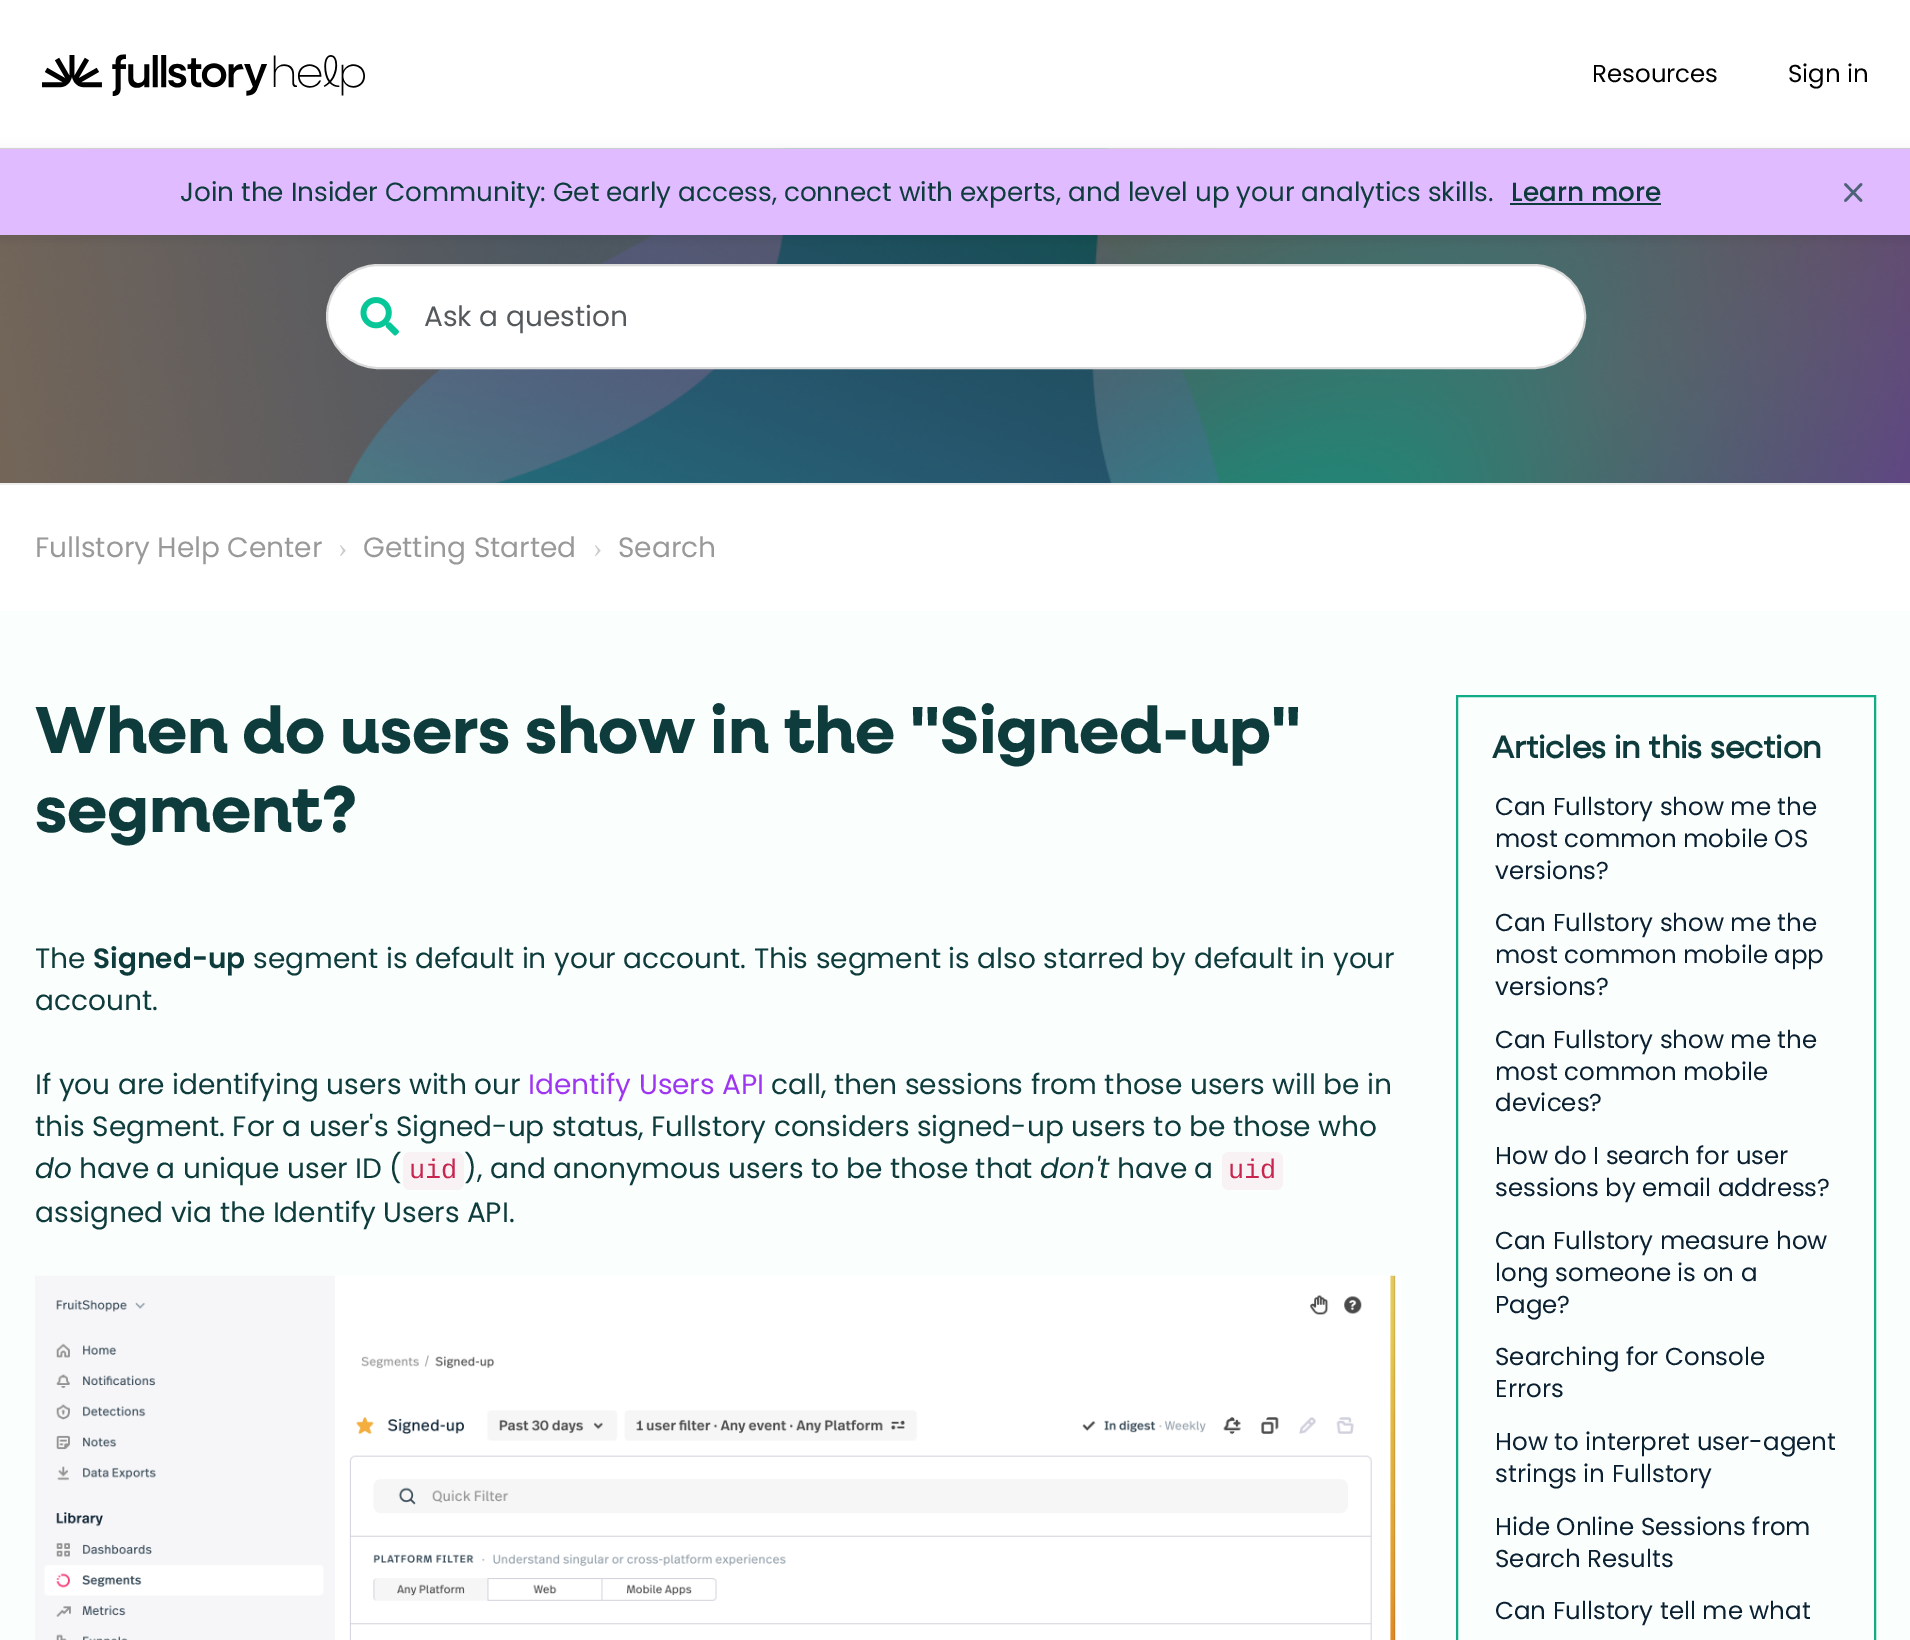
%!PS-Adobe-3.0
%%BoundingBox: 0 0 1910 1640
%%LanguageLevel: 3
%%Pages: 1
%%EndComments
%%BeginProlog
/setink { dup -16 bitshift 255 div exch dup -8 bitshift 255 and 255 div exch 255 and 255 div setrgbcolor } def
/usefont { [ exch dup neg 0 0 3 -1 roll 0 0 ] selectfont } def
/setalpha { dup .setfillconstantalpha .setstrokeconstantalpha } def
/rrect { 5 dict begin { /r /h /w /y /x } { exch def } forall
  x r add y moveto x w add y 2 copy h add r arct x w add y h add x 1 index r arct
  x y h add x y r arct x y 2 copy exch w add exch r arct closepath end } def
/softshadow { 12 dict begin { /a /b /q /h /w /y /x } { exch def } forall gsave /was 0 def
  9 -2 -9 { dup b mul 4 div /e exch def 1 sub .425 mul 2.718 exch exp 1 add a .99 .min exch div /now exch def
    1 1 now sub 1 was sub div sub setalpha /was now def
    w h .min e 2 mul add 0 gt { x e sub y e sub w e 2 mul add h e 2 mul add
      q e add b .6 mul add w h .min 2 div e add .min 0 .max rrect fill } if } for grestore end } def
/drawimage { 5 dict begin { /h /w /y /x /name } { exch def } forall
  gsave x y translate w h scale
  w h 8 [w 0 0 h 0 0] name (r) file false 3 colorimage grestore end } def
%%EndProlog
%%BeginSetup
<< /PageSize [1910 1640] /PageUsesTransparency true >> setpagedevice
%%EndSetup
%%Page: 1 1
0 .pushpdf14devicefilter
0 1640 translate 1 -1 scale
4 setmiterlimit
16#FFFFFF setink
0 0 1910 1640 rectfill
(img1.raw) 42 54 323 42 drawimage
/Poppins-Regular 24.5 usefont
16#000000 setink
1592 82 moveto (Resources) show
1788 82 moveto (Sign in) show
(img2.raw) 0 148 1910 335 drawimage
0 152 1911 86 0 7 0.1 softshadow
16#E1BBFF setink
0 149 1910 86 rectfill
/Poppins-Regular 26.25 usefont
16#0E3C3C setink
180 201 moveto (Join the Insider Community: Get early access, connect with experts, and level up your analytics skills.) show
/Poppins-Medium 26.25 usefont
1511 201 moveto (Learn more) show
1510 203 151 2 rectfill
16#4D6277 setink
2.6 setlinewidth
1 setlinecap
1 setlinejoin
1861 184.5 moveto 1845.5 200.5 lineto 1845.5 184.5 moveto 1861 200.5 lineto stroke
16#FFFFFF setink
327 265 1258 103 51.5 rrect gsave fill grestore
16#DADADA setink
2 setlinewidth
0 setlinecap
0 setlinejoin
stroke
(img3.raw) 360 297 39 39 drawimage
/Poppins-Regular 28 usefont
16#55595C setink
424 326 moveto (Ask a question) show
16#EEEEEE setink
0 483 1910 2 rectfill
16#999999 setink
35 557 moveto (Fullstory Help Center) show
/LiberationSerif-Regular 28 usefont
16#CCCCCC setink
338 557 moveto (›) show
/Poppins-Regular 28 usefont
16#999999 setink
363 557 moveto (Getting Started) show
/LiberationSerif-Regular 28 usefont
16#CCCCCC setink
593 557 moveto (›) show
/Poppins-Regular 28 usefont
16#999999 setink
618 557 moveto (Search) show
16#FAFEFD setink
0 611 1910 1029 rectfill
/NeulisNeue-Bold 66.5 usefont
16#0E3C3C setink
35 753 moveto (When do users show in the "Signed-up") show
35 832 moveto (segment?) show
/Poppins-Regular 28 usefont
35 968 moveto (The) show
/Poppins-SemiBold 28 usefont
93 968 moveto (Signed-up) show
/Poppins-Regular 28 usefont
[
    [(segment is default in your account. This segment is also starred by default in your) 253 968]
    [(account.) 35 1010]
    [(If you are identifying users with our) 35 1094]
] { aload pop moveto show } forall
16#9E36F1 setink
528 1094 moveto (Identify Users API) show
16#0E3C3C setink
771 1094 moveto (call, then sessions from those users will be in) show
35 1136 moveto (this Segment. For a user's Signed-up status, Fullstory considers signed-up users to be those who) show
/Poppins-Italic 28 usefont
35 1178 moveto (do) show
/Poppins-Regular 28 usefont
79 1178 moveto (have a unique user ID \() show
16#F9F2F4 setink
403 1152 61 38 7 rrect fill
/LiberationMono-Regular 27 usefont
16#C7254E setink
409 1178 moveto (uid) show
/Poppins-Regular 28 usefont
16#0E3C3C setink
464 1178 moveto (\), and anonymous users to be those that) show
/Poppins-Italic 28 usefont
1040 1178 moveto (don't) show
/Poppins-Regular 28 usefont
1117 1178 moveto (have a) show
16#F9F2F4 setink
1222 1152 61 38 7 rrect fill
/LiberationMono-Regular 27 usefont
16#C7254E setink
1228 1178 moveto (uid) show
/Poppins-Regular 28 usefont
16#0E3C3C setink
35 1222 moveto (assigned via the Identify Users API.) show
(img4.raw) 35 1275 1366 365 drawimage
16#11AB85 setink
1457 696 418 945 rectstroke
/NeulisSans-Bold 31.5 usefont
16#0E3C3C setink
1492 758 moveto (Articles in this section) show
/Poppins-Regular 24.5 usefont
16#0B2031 setink
[
    [(Can Fullstory show me the) 1495 815]
    [(most common mobile OS) 1495 847]
    [(versions?) 1495 879]
    [(Can Fullstory show me the) 1495 931]
    [(most common mobile app) 1495 963]
    [(versions?) 1495 995]
    [(Can Fullstory show me the) 1495 1048]
    [(most common mobile) 1495 1080]
    [(devices?) 1495 1111]
    [(How do I search for user) 1495 1164]
    [(sessions by email address?) 1495 1196]
    [(Can Fullstory measure how) 1495 1249]
    [(long someone is on a) 1495 1281]
    [(Page?) 1495 1313]
    [(Searching for Console) 1495 1365]
    [(Errors) 1495 1397]
    [(How to interpret user-agent) 1495 1450]
    [(strings in Fullstory) 1495 1482]
    [(Hide Online Sessions from) 1495 1535]
    [(Search Results) 1495 1567]
    [(Can Fullstory tell me what) 1495 1619]
] { aload pop moveto show } forall
.poppdf14devicefilter showpage
%%EOF
